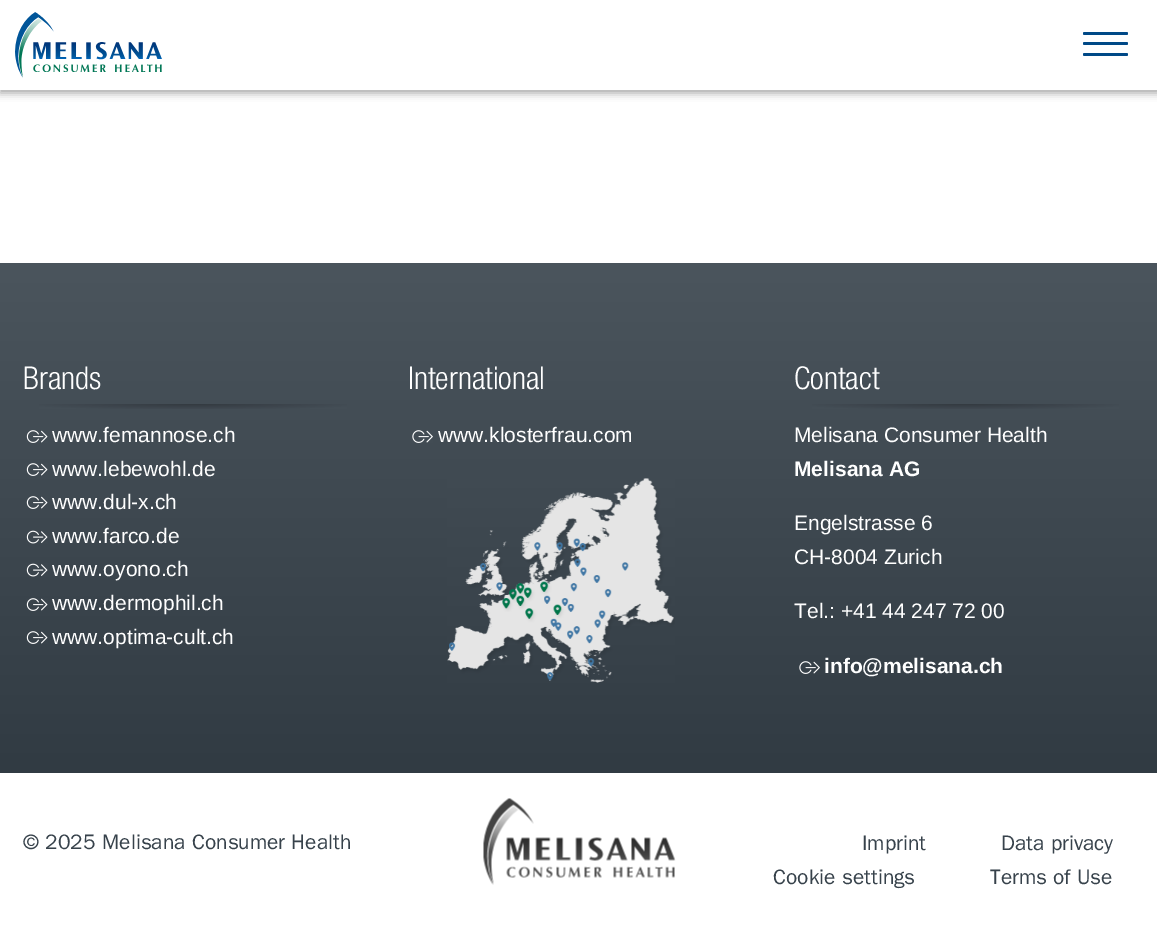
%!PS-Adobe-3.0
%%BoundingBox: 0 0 1157 929
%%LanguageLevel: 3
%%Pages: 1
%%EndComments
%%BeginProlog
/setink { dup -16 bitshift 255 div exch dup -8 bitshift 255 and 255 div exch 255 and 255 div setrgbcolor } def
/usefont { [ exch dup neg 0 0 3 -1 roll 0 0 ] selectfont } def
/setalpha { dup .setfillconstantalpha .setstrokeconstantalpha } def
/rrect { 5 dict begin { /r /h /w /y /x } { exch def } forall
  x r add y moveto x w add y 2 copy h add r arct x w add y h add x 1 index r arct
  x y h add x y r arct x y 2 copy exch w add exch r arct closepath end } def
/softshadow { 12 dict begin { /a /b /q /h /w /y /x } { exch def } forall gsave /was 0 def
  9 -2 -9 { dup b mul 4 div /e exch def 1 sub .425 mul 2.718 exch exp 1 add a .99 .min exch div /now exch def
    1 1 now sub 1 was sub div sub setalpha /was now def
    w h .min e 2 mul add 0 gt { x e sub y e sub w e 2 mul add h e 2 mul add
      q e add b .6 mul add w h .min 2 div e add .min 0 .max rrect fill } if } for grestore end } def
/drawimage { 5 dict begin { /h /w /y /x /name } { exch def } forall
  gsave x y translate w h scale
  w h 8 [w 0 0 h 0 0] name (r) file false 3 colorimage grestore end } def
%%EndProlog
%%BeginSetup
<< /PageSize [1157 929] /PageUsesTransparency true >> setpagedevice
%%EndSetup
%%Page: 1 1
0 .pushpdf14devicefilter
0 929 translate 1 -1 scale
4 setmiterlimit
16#FFFFFF setink
0 0 1157 929 rectfill
16#000000 setink
0 3 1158 90 0 4 0.35 softshadow
16#FFFFFF setink
0 0 1157 90 rectfill
(img1.raw) 15 12 147 66 drawimage
16#004987 setink
1083 32 45 3 1.5 rrect fill
1083 42 45 3 1.5 rrect fill
1083 53 45 3 1.5 rrect fill
gsave 0 263 moveto 1157 263 lineto 1157 773 lineto 0 773 lineto closepath clip newpath
<< /ShadingType 2 /ColorSpace /DeviceRGB /Coords [579 262 579 773] /Extend [true true] /Function << /FunctionType 2 /Domain [0 1] /C0 [0.294 0.333 0.365] /C1 [0.192 0.231 0.263] /N 1 >> >> shfill grestore
/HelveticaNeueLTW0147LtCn-Light 31.5 usefont
16#FFFFFF setink
23 389 moveto (Brands) show
gsave 39 404 moveto 347 404 lineto 347 409 lineto 39 409 lineto closepath clip newpath 193 404 translate 217 8 scale
<< /ShadingType 3 /ColorSpace /DeviceRGB /Coords [0 0 0 0 0 1] /Extend [true true] /Function << /FunctionType 3 /Domain [0 1] /Functions [<< /FunctionType 2 /Domain [0 1] /C0 [0.2 0.227 0.251] /C1 [0.267 0.306 0.337] /N 1 >> << /FunctionType 2 /Domain [0 1] /C0 [0.267 0.306 0.337] /C1 [0.267 0.306 0.337] /N 1 >>] /Bounds [0.8] /Encode [0 1 0 1] >> >> shfill grestore
(img2.raw) 26 430 22 13 drawimage
/LiberationSans-Regular 21 usefont
52 442 moveto (www.femannose.ch) show
(img3.raw) 26 463 22 13 drawimage
52 476 moveto (www.lebewohl.de) show
(img4.raw) 26 496 22 13 drawimage
52 509 moveto (www.dul-x.ch) show
(img5.raw) 26 530 22 14 drawimage
52 543 moveto (www.farco.de) show
(img6.raw) 26 563 22 14 drawimage
52 576 moveto (www.oyono.ch) show
(img7.raw) 26 598 22 13 drawimage
52 610 moveto (www.dermophil.ch) show
(img8.raw) 26 631 22 13 drawimage
52 644 moveto (www.optima-cult.ch) show
/HelveticaNeueLTW0147LtCn-Light 31.5 usefont
408 389 moveto (International) show
(img9.raw) 412 430 21 13 drawimage
/LiberationSans-Regular 21 usefont
438 442 moveto (www.klosterfrau.com) show
(img10.raw) 447 478 228 205 drawimage
/HelveticaNeueLTW0147LtCn-Light 31.5 usefont
794 389 moveto (Contact) show
gsave 812 404 moveto 1119 404 lineto 1119 409 lineto 812 409 lineto closepath clip newpath 965 404 translate 217 8 scale
<< /ShadingType 3 /ColorSpace /DeviceRGB /Coords [0 0 0 0 0 1] /Extend [true true] /Function << /FunctionType 3 /Domain [0 1] /Functions [<< /FunctionType 2 /Domain [0 1] /C0 [0.2 0.227 0.251] /C1 [0.267 0.306 0.337] /N 1 >> << /FunctionType 2 /Domain [0 1] /C0 [0.267 0.306 0.337] /C1 [0.267 0.306 0.337] /N 1 >>] /Bounds [0.8] /Encode [0 1 0 1] >> >> shfill grestore
/LiberationSans-Regular 21 usefont
794 442 moveto (Melisana Consumer Health) show
/LiberationSans-Bold 21 usefont
794 476 moveto (Melisana AG) show
/LiberationSans-Regular 21 usefont
[
    [(Engelstrasse 6) 794 530]
    [(CH-8004 Zurich) 794 564]
    [(Tel.: +41 44 247 72 00) 794 618]
] { aload pop moveto show } forall
(img11.raw) 799 661 21 13 drawimage
/LiberationSans-Bold 21 usefont
824 673 moveto (info@melisana.ch) show
/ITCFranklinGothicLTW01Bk-Regular 21 usefont
16#37424B setink
23 849 moveto (© 2025 Melisana Consumer Health) show
(img12.raw) 483 798 193 87 drawimage
[
    [(Imprint) 862 850]
    [(Data privacy) 1001 850]
    [(Cookie settings) 773 884]
    [(Terms of Use) 990 884]
] { aload pop moveto show } forall
.poppdf14devicefilter showpage
%%EOF
